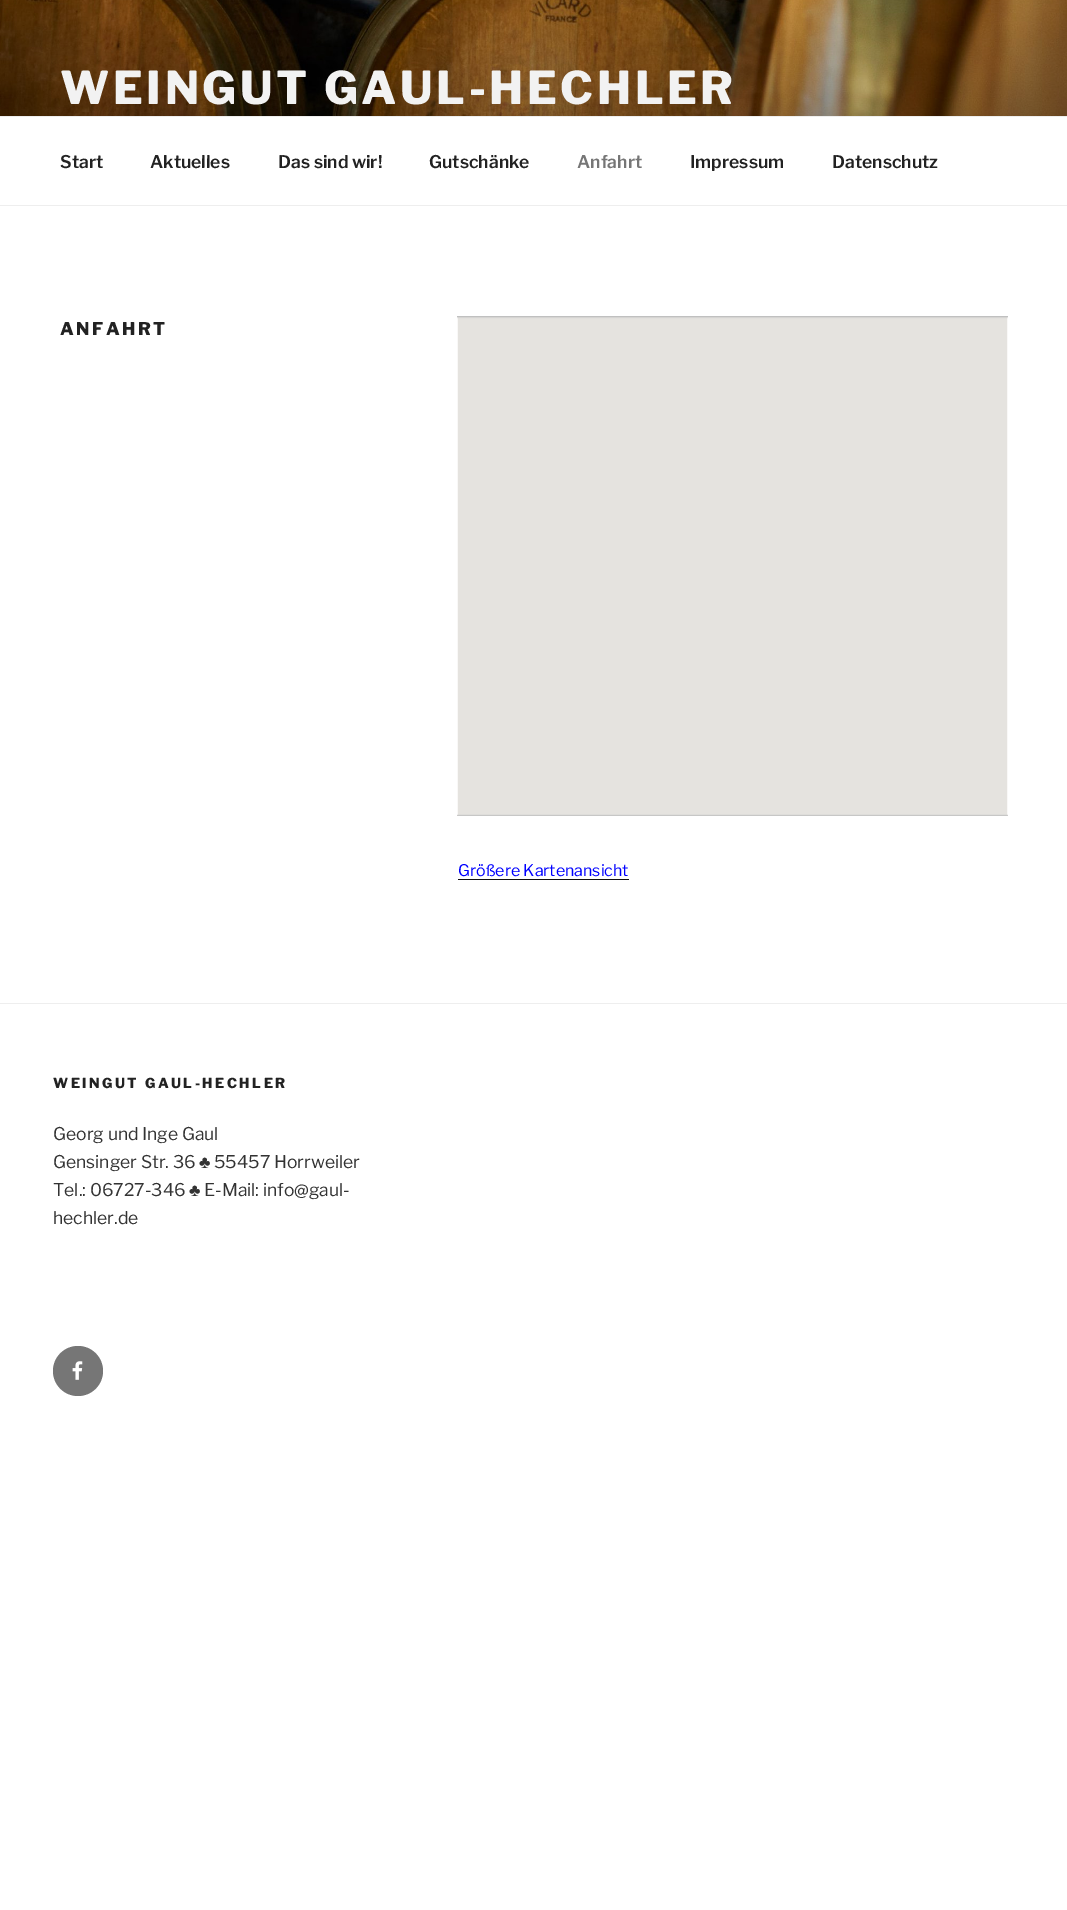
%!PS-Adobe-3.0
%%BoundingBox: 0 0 1067 1910
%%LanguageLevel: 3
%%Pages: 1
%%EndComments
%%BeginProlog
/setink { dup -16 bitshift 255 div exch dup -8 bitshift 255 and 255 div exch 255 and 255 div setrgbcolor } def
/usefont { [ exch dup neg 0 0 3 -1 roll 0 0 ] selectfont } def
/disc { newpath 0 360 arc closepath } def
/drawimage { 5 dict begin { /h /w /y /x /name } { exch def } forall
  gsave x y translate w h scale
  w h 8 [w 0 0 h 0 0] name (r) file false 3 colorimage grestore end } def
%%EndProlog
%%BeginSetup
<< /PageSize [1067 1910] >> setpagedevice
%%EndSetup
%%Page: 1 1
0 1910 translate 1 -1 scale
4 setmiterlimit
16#FFFFFF setink
0 0 1067 1910 rectfill
(img1.raw) 0 0 1067 116 drawimage
/LibreFranklin-ExtraBold 45 usefont
16#F2F2F2 setink
60 104 moveto 3.6 0 (WEINGUT GAUL-HECHLER) ashow
16#EEEEEE setink
0 116 1067 1 rectfill
0 205 1067 1 rectfill
/LibreFranklin-SemiBold 17.5 usefont
16#222222 setink
[
    [(Start) 60 168]
    [(Aktuelles) 150 168]
    [(Das sind wir!) 278 168]
    [(Gutschänke) 429 168]
] { aload pop moveto show } forall
16#767676 setink
577 168 moveto (Anfahrt) show
16#222222 setink
690 168 moveto (Impressum) show
832 168 moveto (Datenschutz) show
/LibreFranklin-ExtraBold 17.5 usefont
60 335 moveto 2.5 0 (ANFAHRT) ashow
(img2.raw) 457 316 551 500 drawimage
/LibreFranklin-Regular 16 usefont
16#0000FF setink
458 876 moveto (Größere Kartenansicht) show
16#0F0F0F setink
458 879 171 1 rectfill
16#EEEEEE setink
0 1003 1067 1 rectfill
/LibreFranklin-ExtraBold 13.75 usefont
16#222222 setink
53 1088 moveto 2.5 0 (WEINGUT GAUL-HECHLER) ashow
/LibreFranklin-Regular 17.5 usefont
16#333333 setink
53 1140 moveto (Georg und Inge Gaul) show
53 1168 moveto (Gensinger Str. 36) show
/LiberationSans-Regular 17.5 usefont
199 1168 moveto (♣) show
/LibreFranklin-Regular 17.5 usefont
214 1168 moveto (55457 Horrweiler) show
53 1196 moveto (Tel.: 06727-346) show
/LiberationSans-Regular 17.5 usefont
189 1196 moveto (♣) show
/LibreFranklin-Regular 17.5 usefont
204 1196 moveto (E-Mail: info@gaul-) show
53 1224 moveto (hechler.de) show
16#767676 setink
78 1371 25 disc fill
(img3.raw) 72 1361 11 19 drawimage
showpage
%%EOF
